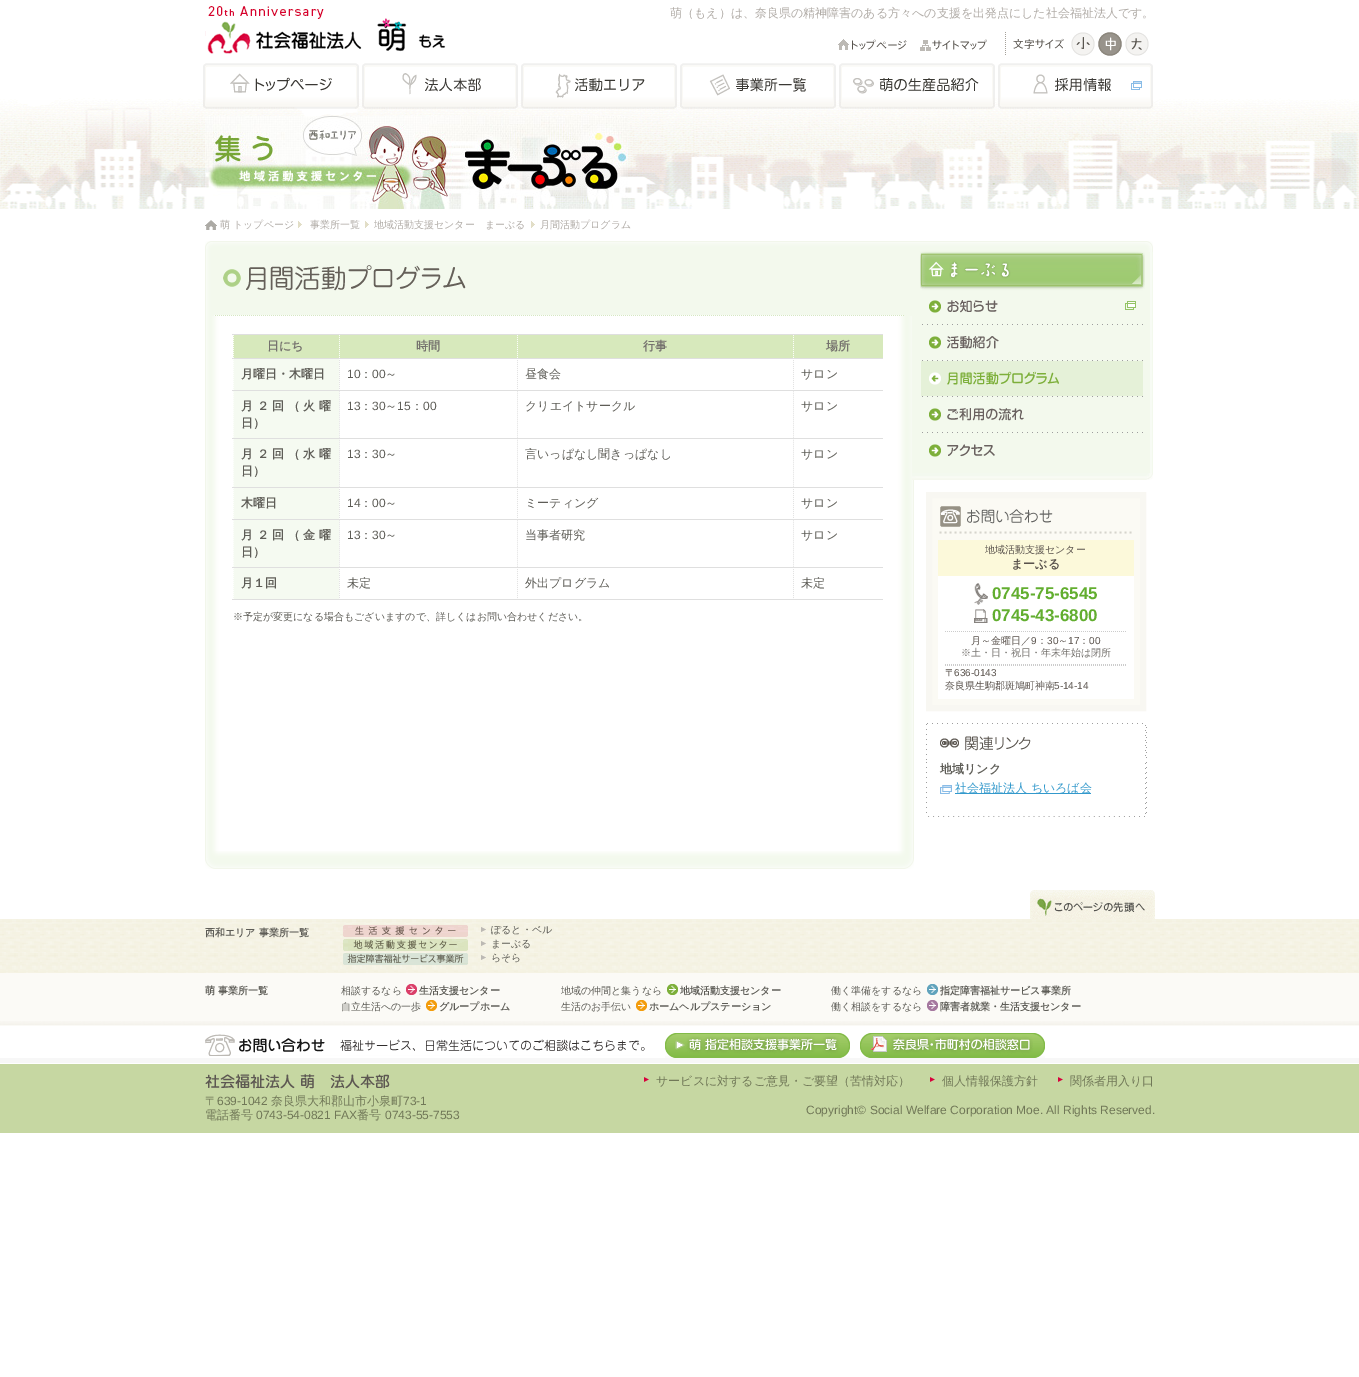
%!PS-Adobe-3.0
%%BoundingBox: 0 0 1359 1377
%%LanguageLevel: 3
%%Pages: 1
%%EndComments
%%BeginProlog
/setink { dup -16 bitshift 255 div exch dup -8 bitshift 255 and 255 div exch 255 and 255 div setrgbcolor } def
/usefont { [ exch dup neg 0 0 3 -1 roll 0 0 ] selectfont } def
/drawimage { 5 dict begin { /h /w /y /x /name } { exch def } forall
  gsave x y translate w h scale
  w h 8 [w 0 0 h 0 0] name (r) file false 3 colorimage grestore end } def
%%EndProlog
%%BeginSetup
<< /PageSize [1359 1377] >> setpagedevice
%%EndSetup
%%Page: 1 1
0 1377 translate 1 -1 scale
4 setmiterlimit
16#FFFFFF setink
0 0 1359 1377 rectfill
(img1.raw) 205 6 241 48 drawimage
/WenQuanYiZenHei-Medium 12 usefont
16#B1ACA7 setink
670 17 moveto (萌（もえ）は、奈良県の精神障害のある方々への支援を出発点にした社会福祉法人です。) show
(img2.raw) 838 39 69 11 drawimage
(img3.raw) 920 39 67 12 drawimage
(img4.raw) 1005 32 59 23 drawimage
(img5.raw) 1071 32 24 24 drawimage
(img6.raw) 1098 32 24 24 drawimage
(img7.raw) 1125 32 24 24 drawimage
(img8.raw) 0 98 1359 111 drawimage
(img9.raw) 203 63 156 46 drawimage
(img10.raw) 362 63 156 46 drawimage
(img11.raw) 521 63 156 46 drawimage
(img12.raw) 680 63 156 46 drawimage
(img13.raw) 839 63 156 46 drawimage
(img14.raw) 998 63 155 46 drawimage
(img15.raw) 205 116 423 93 drawimage
(img16.raw) 205 220 12 10 drawimage
/WenQuanYiZenHei-Medium 10 usefont
220 228 moveto (萌 トップページ) show
(img17.raw) 298 221 4 7 drawimage
310 228 moveto (事業所一覧) show
(img17.raw) 365 221 4 7 drawimage
374 228 moveto (地域活動支援センター　まーぶる) show
(img17.raw) 531 221 4 7 drawimage
540 228 moveto (月間活動プログラム) show
(img18.raw) 205 316 709 535 drawimage
(img19.raw) 205 851 709 18 drawimage
(img20.raw) 205 241 709 75 drawimage
16#DFDFDF setink
232 334 651 1 rectfill
16#D7E9BC setink
233 335 650 23 rectfill
(img21.raw) 233 335 1 23 drawimage
/WenQuanYiZenHei-Bold 12 usefont
16#75726E setink
267 350 moveto (日にち) show
(img21.raw) 339 335 1 23 drawimage
416 350 moveto (時間) show
(img21.raw) 517 335 1 23 drawimage
643 350 moveto (行事) show
(img21.raw) 793 335 1 23 drawimage
826 350 moveto (場所) show
16#F5FAF1 setink
233 359 106 31 rectfill
(img22.raw) 233 359 1 31 drawimage
16#5E5D57 setink
241 378 moveto (月曜日・木曜日) show
(img23.raw) 339 360 1 29 drawimage
/LiberationSans-Regular 12 usefont
347 378 moveto (10) show
/WenQuanYiZenHei-Medium 12 usefont
360 378 moveto (：) show
/LiberationSans-Regular 12 usefont
372 378 moveto (00) show
/WenQuanYiZenHei-Medium 12 usefont
385 378 moveto (～) show
(img23.raw) 517 360 1 29 drawimage
525 378 moveto (昼食会) show
(img23.raw) 793 360 1 29 drawimage
16#DFDFDF setink
232 358 651 1 rectfill
16#5E5D57 setink
801 378 moveto (サロン) show
16#F5FAF1 setink
233 391 106 47 rectfill
(img24.raw) 233 391 1 47 drawimage
/WenQuanYiZenHei-Bold 12 usefont
16#5E5D57 setink
241 410 moveto 3.5 0 (月２回（火曜) ashow
241 427 moveto (日）) show
(img25.raw) 339 391 1 47 drawimage
/LiberationSans-Regular 12 usefont
347 410 moveto (13) show
/WenQuanYiZenHei-Medium 12 usefont
360 410 moveto (：) show
/LiberationSans-Regular 12 usefont
372 410 moveto (30) show
/WenQuanYiZenHei-Medium 12 usefont
385 410 moveto (～) show
/LiberationSans-Regular 12 usefont
397 410 moveto (15) show
/WenQuanYiZenHei-Medium 12 usefont
411 410 moveto (：) show
/LiberationSans-Regular 12 usefont
423 410 moveto (00) show
(img25.raw) 517 391 1 47 drawimage
/WenQuanYiZenHei-Medium 12 usefont
525 410 moveto (クリエイトサークル) show
(img25.raw) 793 391 1 47 drawimage
16#DFDFDF setink
232 390 651 1 rectfill
16#5E5D57 setink
801 410 moveto (サロン) show
16#F5FAF1 setink
233 439 106 48 rectfill
(img26.raw) 233 439 1 48 drawimage
/WenQuanYiZenHei-Bold 12 usefont
16#5E5D57 setink
241 458 moveto 3.5 0 (月２回（水曜) ashow
241 475 moveto (日）) show
(img27.raw) 339 439 1 48 drawimage
/LiberationSans-Regular 12 usefont
347 458 moveto (13) show
/WenQuanYiZenHei-Medium 12 usefont
360 458 moveto (：) show
/LiberationSans-Regular 12 usefont
372 458 moveto (30) show
/WenQuanYiZenHei-Medium 12 usefont
385 458 moveto (～) show
(img27.raw) 517 439 1 48 drawimage
525 458 moveto (言いっぱなし聞きっぱなし) show
(img27.raw) 793 439 1 48 drawimage
16#DFDFDF setink
232 438 651 1 rectfill
16#5E5D57 setink
801 458 moveto (サロン) show
16#F5FAF1 setink
233 488 106 31 rectfill
(img22.raw) 233 488 1 31 drawimage
/WenQuanYiZenHei-Bold 12 usefont
16#5E5D57 setink
241 507 moveto (木曜日) show
(img23.raw) 339 489 1 29 drawimage
/LiberationSans-Regular 12 usefont
347 507 moveto (14) show
/WenQuanYiZenHei-Medium 12 usefont
360 507 moveto (：) show
/LiberationSans-Regular 12 usefont
372 507 moveto (00) show
/WenQuanYiZenHei-Medium 12 usefont
385 507 moveto (～) show
(img23.raw) 517 489 1 29 drawimage
525 507 moveto (ミーティング) show
(img23.raw) 793 489 1 29 drawimage
16#DFDFDF setink
232 487 651 1 rectfill
16#5E5D57 setink
801 507 moveto (サロン) show
16#F5FAF1 setink
233 520 106 47 rectfill
(img24.raw) 233 520 1 47 drawimage
/WenQuanYiZenHei-Bold 12 usefont
16#5E5D57 setink
241 539 moveto 3.5 0 (月２回（金曜) ashow
241 556 moveto (日）) show
(img25.raw) 339 520 1 47 drawimage
/LiberationSans-Regular 12 usefont
347 539 moveto (13) show
/WenQuanYiZenHei-Medium 12 usefont
360 539 moveto (：) show
/LiberationSans-Regular 12 usefont
372 539 moveto (30) show
/WenQuanYiZenHei-Medium 12 usefont
385 539 moveto (～) show
(img25.raw) 517 520 1 47 drawimage
525 539 moveto (当事者研究) show
(img25.raw) 793 520 1 47 drawimage
16#DFDFDF setink
232 519 651 1 rectfill
16#5E5D57 setink
801 539 moveto (サロン) show
16#F5FAF1 setink
233 568 106 31 rectfill
(img22.raw) 233 568 1 31 drawimage
/WenQuanYiZenHei-Bold 12 usefont
16#5E5D57 setink
241 587 moveto (月１回) show
(img28.raw) 339 569 1 30 drawimage
/WenQuanYiZenHei-Medium 12 usefont
347 587 moveto (未定) show
(img28.raw) 517 569 1 30 drawimage
525 587 moveto (外出プログラム) show
(img28.raw) 793 569 1 30 drawimage
16#DFDFDF setink
232 567 651 1 rectfill
232 599 651 1 rectfill
16#5E5D57 setink
801 587 moveto (未定) show
/WenQuanYiZenHei-Medium 10 usefont
233 620 moveto (※予定が変更になる場合もございますので、詳しくはお問い合わせください。) show
(img29.raw) 914 241 239 11 drawimage
16#F3F9ED setink
912 252 241 221 rectfill
16#F7FBF4 setink
1150 252 2 228 rectfill
(img30.raw) 920 252 225 37 drawimage
(img31.raw) 912 473 241 7 drawimage
(img32.raw) 922 289 221 36 drawimage
(img33.raw) 922 336 221 25 drawimage
(img34.raw) 921 361 222 36 drawimage
(img35.raw) 922 408 221 25 drawimage
(img36.raw) 929 444 66 13 drawimage
16#FBFAF4 setink
929 495 moveto 1143 495 lineto 1143 708 lineto 929 708 lineto closepath gsave fill grestore
16#F8F7F2 setink
6 setlinewidth
stroke
(img37.raw) 939 506 193 28 drawimage
16#FCF9DA setink
938 540 196 36 rectfill
16#59524C setink
985 553 moveto (地域活動支援センター) show
/WenQuanYiZenHei-Bold 12 usefont
1011 568 moveto (まーぶる) show
16#FFFFFF setink
938 576 196 123 rectfill
(img38.raw) 974 583 14 22 drawimage
/LiberationSans-Bold 17 usefont
16#62AE2F setink
992 599 moveto (0745-75-6545) show
(img39.raw) 974 609 14 14 drawimage
992 621 moveto (0745-43-6800) show
(img40.raw) 945 631 181 1 drawimage
/WenQuanYiZenHei-Medium 10 usefont
16#59524C setink
971 644 moveto (月～金曜日／) show
/LiberationSans-Regular 10 usefont
1031 644 moveto (9) show
/WenQuanYiZenHei-Medium 10 usefont
1037 644 moveto (：) show
/LiberationSans-Regular 10 usefont
1047 644 moveto (30) show
/WenQuanYiZenHei-Medium 10 usefont
1058 644 moveto (～) show
/LiberationSans-Regular 10 usefont
1068 644 moveto (17) show
/WenQuanYiZenHei-Medium 10 usefont
1079 644 moveto (：) show
/LiberationSans-Regular 10 usefont
1089 644 moveto (00) show
/WenQuanYiZenHei-Medium 10 usefont
16#75726E setink
961 656 moveto (※土・日・祝日・年末年始は閉所) show
(img41.raw) 945 664 181 2 drawimage
16#59524C setink
945 676 moveto (〒) show
/LiberationSans-Regular 10 usefont
954 676 moveto (636-0143) show
/WenQuanYiZenHei-Medium 10 usefont
945 689 moveto (奈良県生駒郡斑鳩町神南) show
/LiberationSans-Regular 10 usefont
1054 689 moveto (5-14-14) show
(img42.raw) 926 723 221 91 drawimage
(img43.raw) 926 723 220 37 drawimage
(img44.raw) 928 816 217 1 drawimage
/WenQuanYiZenHei-Bold 12 usefont
16#5E5D57 setink
940 773 moveto (地域リンク) show
(img45.raw) 940 785 12 9 drawimage
16#3399CC setink
955 793 136 1 rectfill
/WenQuanYiZenHei-Medium 12 usefont
955 792 moveto (社会福祉法人 ちいろば会) show
(img46.raw) 1030 890 125 29 drawimage
(img47.raw) 0 919 1359 54 drawimage
/WenQuanYiZenHei-Bold 10 usefont
16#5E5D57 setink
205 936 moveto (西和エリア 事業所一覧) show
(img48.raw) 343 925 125 12 drawimage
(img49.raw) 481 927 5 5 drawimage
/WenQuanYiZenHei-Medium 10 usefont
491 933 moveto (ぽると・ベル) show
(img50.raw) 343 939 125 12 drawimage
(img49.raw) 481 941 5 5 drawimage
491 947 moveto (まーぶる) show
(img51.raw) 343 953 125 12 drawimage
(img49.raw) 481 955 5 5 drawimage
491 961 moveto (らそら) show
16#FBFAF6 setink
0 973 1359 53 rectfill
(img52.raw) 0 1021 1359 4 drawimage
/WenQuanYiZenHei-Bold 10 usefont
16#5E5D57 setink
205 994 moveto (萌 事業所一覧) show
/WenQuanYiZenHei-Medium 10 usefont
341 994 moveto (相談するなら) show
(img53.raw) 406 984 11 11 drawimage
/WenQuanYiZenHei-Bold 10 usefont
419 994 moveto (生活支援センター) show
/WenQuanYiZenHei-Medium 10 usefont
561 994 moveto (地域の仲間と集うなら) show
(img54.raw) 667 984 11 11 drawimage
/WenQuanYiZenHei-Bold 10 usefont
680 994 moveto (地域活動支援センター) show
/WenQuanYiZenHei-Medium 10 usefont
831 994 moveto (働く準備をするなら) show
(img55.raw) 927 984 11 11 drawimage
/WenQuanYiZenHei-Bold 10 usefont
940 994 moveto (指定障害福祉サービス事業所) show
/WenQuanYiZenHei-Medium 10 usefont
341 1010 moveto (自立生活への一歩) show
(img56.raw) 426 1000 11 11 drawimage
/WenQuanYiZenHei-Bold 10 usefont
439 1010 moveto (グループホーム) show
/WenQuanYiZenHei-Medium 10 usefont
561 1010 moveto (生活のお手伝い) show
(img57.raw) 636 1000 11 11 drawimage
/WenQuanYiZenHei-Bold 10 usefont
649 1010 moveto (ホームヘルプステーション) show
/WenQuanYiZenHei-Medium 10 usefont
831 1010 moveto (働く相談をするなら) show
(img58.raw) 927 1000 11 11 drawimage
/WenQuanYiZenHei-Bold 10 usefont
940 1010 moveto (障害者就業・生活支援センター) show
16#F7F7F7 setink
0 1058 1359 5 rectfill
(img59.raw) 205 1034 440 22 drawimage
(img60.raw) 665 1033 185 25 drawimage
(img61.raw) 860 1033 185 25 drawimage
16#C6D7A2 setink
0 1064 1359 69 rectfill
(img62.raw) 205 1074 185 15 drawimage
/WenQuanYiZenHei-Medium 12 usefont
16#717858 setink
205 1105 moveto (〒) show
/LiberationSans-Regular 12 usefont
217 1105 moveto (639-1042) show
/WenQuanYiZenHei-Medium 12 usefont
271 1105 moveto (奈良県大和郡山市小泉町) show
/LiberationSans-Regular 12 usefont
403 1105 moveto (73-1) show
/WenQuanYiZenHei-Medium 12 usefont
205 1119 moveto (電話番号) show
/LiberationSans-Regular 12 usefont
256 1119 moveto (0743-54-0821 FAX) show
/WenQuanYiZenHei-Medium 12 usefont
357 1119 moveto (番号) show
/LiberationSans-Regular 12 usefont
385 1119 moveto (0743-55-7553) show
(img63.raw) 644 1077 5 5 drawimage
/WenQuanYiZenHei-Medium 12 usefont
656 1085 moveto (サービスに対するご意見・ご要望（苦情対応）) show
(img63.raw) 930 1077 5 5 drawimage
942 1085 moveto (個人情報保護方針) show
(img63.raw) 1058 1077 5 5 drawimage
1070 1085 moveto (関係者用入り口) show
/LiberationSans-Regular 12 usefont
806 1114 moveto (Copyright© Social Welfare Corporation Moe. All Rights Reserved.) show
showpage
%%EOF
